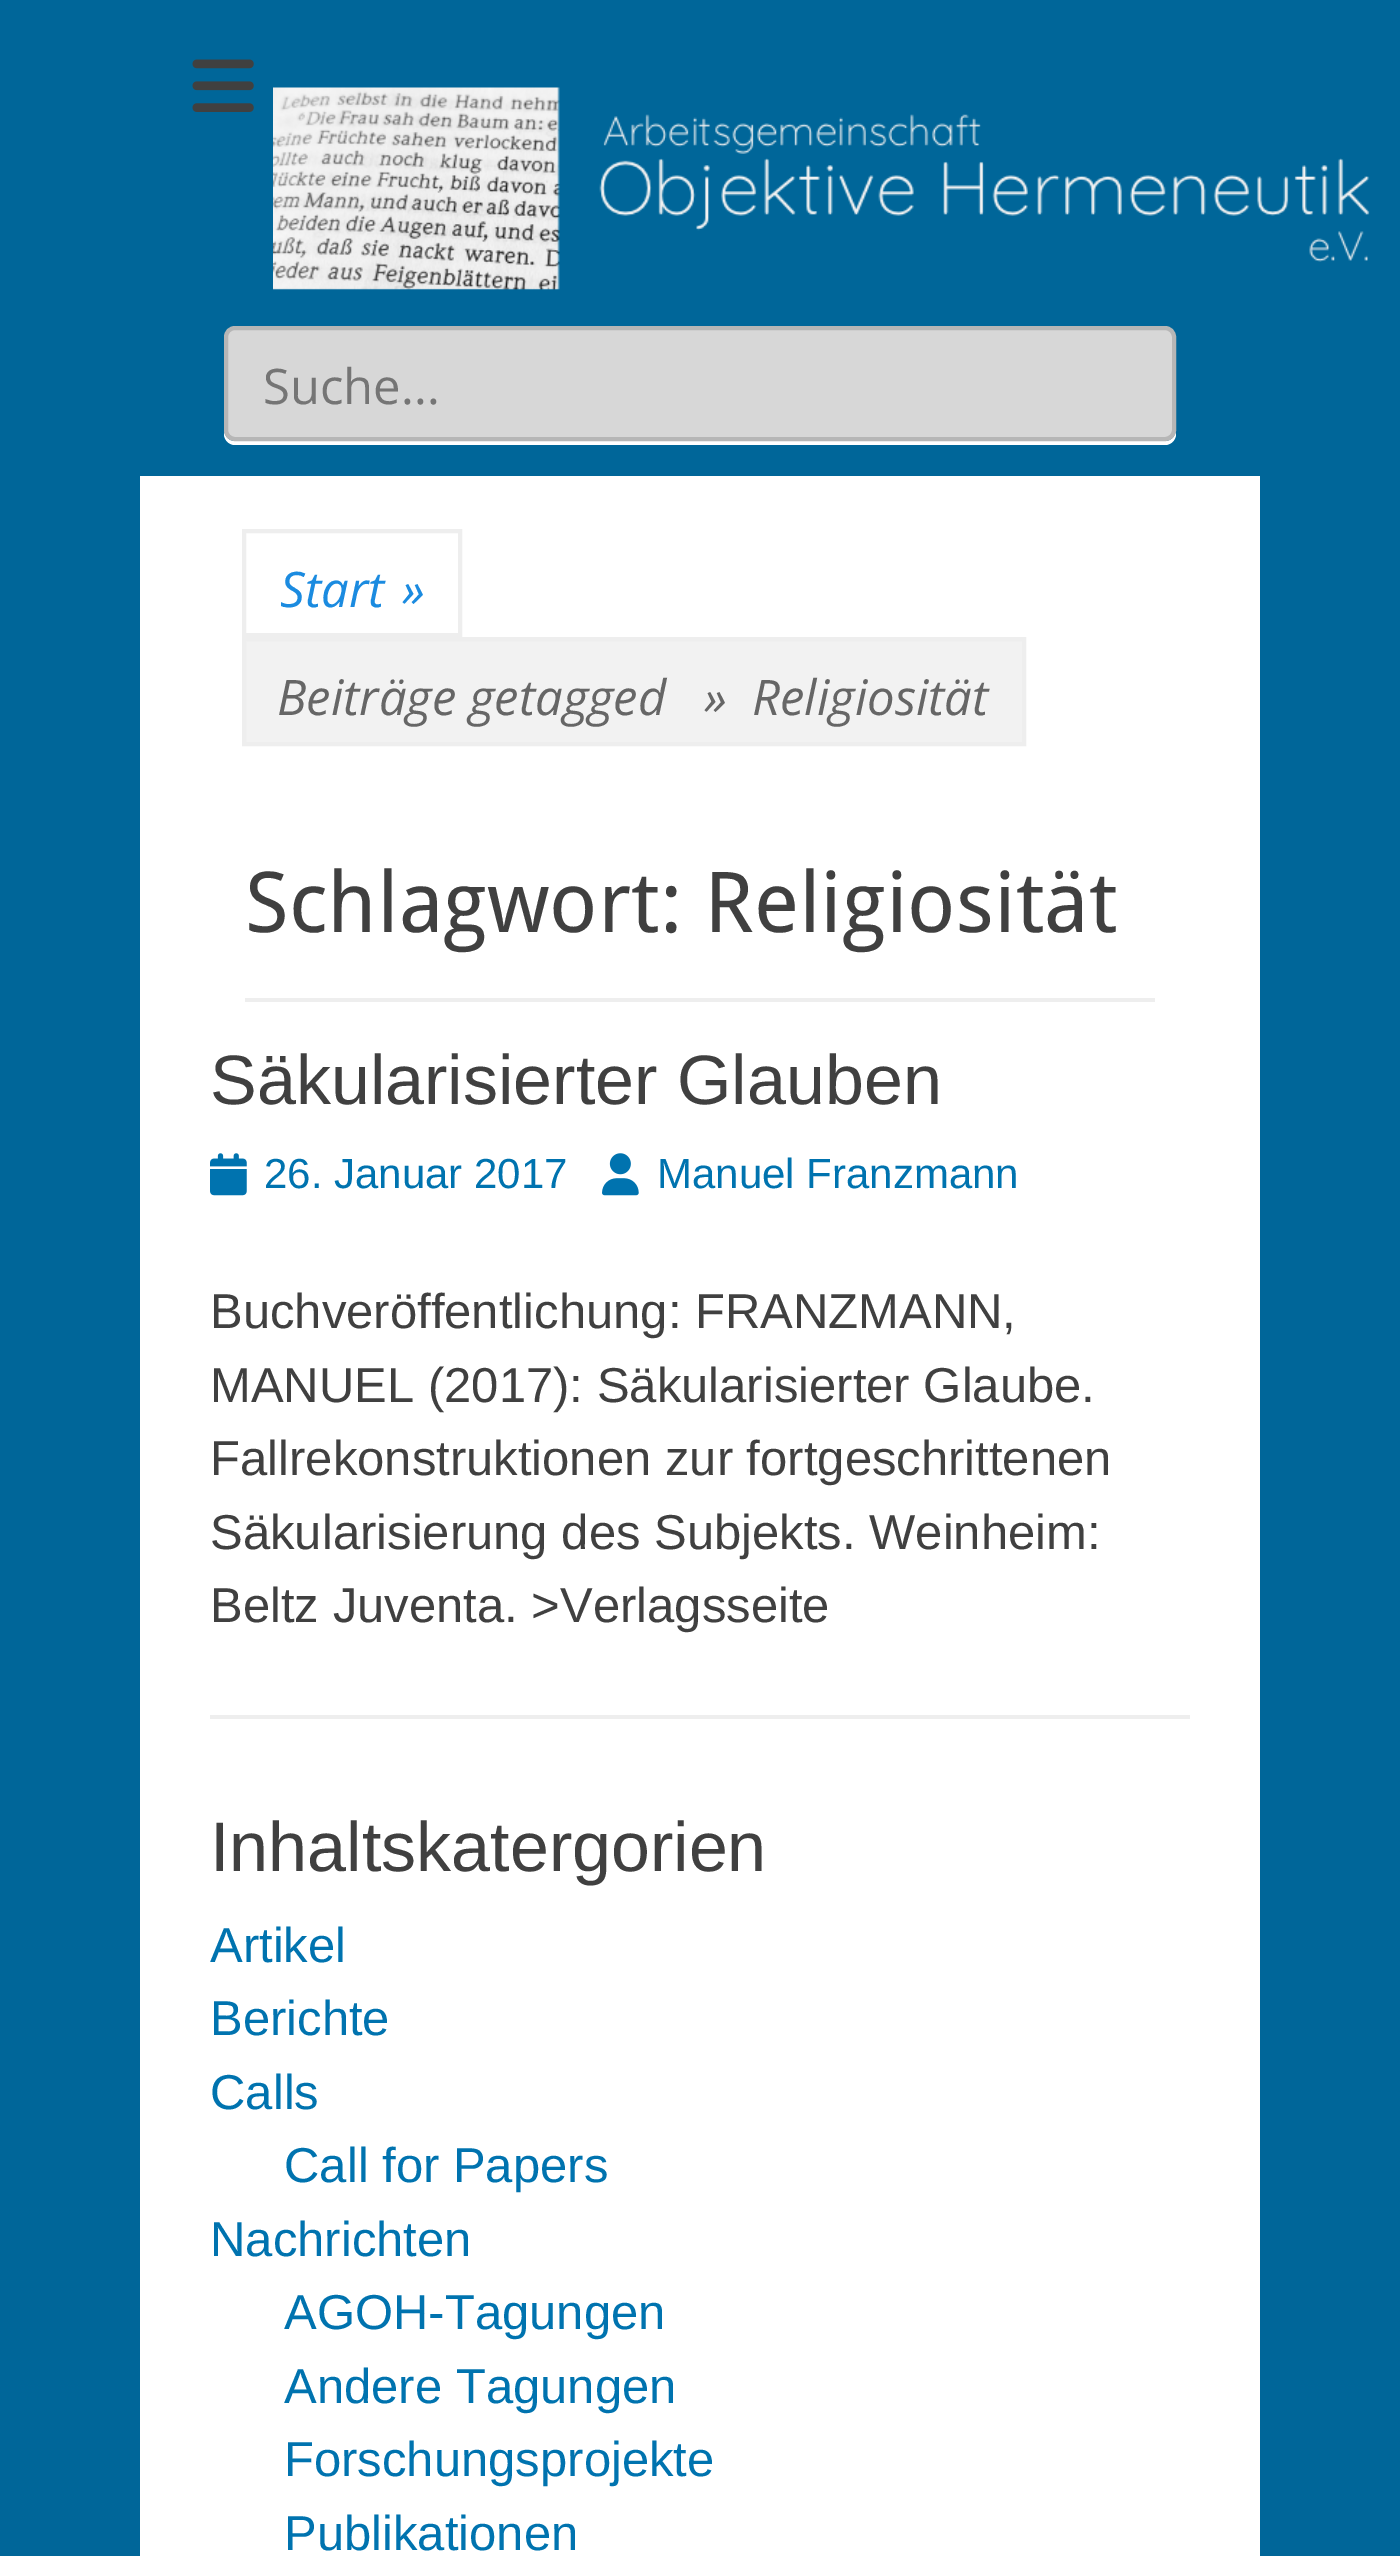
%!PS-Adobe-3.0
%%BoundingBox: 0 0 1400 2556
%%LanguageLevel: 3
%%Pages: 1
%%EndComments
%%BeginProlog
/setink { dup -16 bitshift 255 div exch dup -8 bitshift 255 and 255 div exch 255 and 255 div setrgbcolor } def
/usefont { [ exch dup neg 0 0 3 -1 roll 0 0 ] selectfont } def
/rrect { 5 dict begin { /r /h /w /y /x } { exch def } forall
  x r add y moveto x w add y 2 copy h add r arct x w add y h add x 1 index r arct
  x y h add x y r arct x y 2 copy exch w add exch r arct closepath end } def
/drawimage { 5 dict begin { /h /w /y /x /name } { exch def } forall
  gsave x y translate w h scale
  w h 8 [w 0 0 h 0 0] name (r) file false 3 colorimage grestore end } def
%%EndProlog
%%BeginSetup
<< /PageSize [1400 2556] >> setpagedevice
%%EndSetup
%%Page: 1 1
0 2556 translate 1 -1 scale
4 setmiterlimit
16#006699 setink
0 0 1400 2556 rectfill
(img1.raw) 192 59 62 53 drawimage
(img2.raw) 273 87 1097 203 drawimage
16#FFFFFF setink
224 430 moveto 224 434 lineto 224 440 229 445 235 445 curveto 1165 445 lineto 1171 445 1176 440 1176 434 curveto 1176 430 lineto 1176 436 1171 441 1166 441 curveto 234 441 lineto 229 441 224 436 224 430 curveto closepath fill
16#D7D7D7 setink
226 328 948 111 9 rrect gsave fill grestore
16#B6B6B6 setink
4 setlinewidth
stroke
/OpenSans-Regular 49 usefont
16#757575 setink
263 404 moveto (Suche...) show
16#FFFFFF setink
140 476 1120 2080 rectfill
16#EEEEEE setink
244 531 216 104 rectstroke
/OpenSans-Italic 49 usefont
16#1B8BE0 setink
280 607 moveto (Start) show
402 607 moveto (») show
16#F2F2F2 setink
244 639 moveto 1024 639 lineto 1024 744 lineto 244 744 lineto closepath gsave fill grestore
16#EEEEEE setink
stroke
16#666666 setink
277 715 moveto (Beiträge getagged   ») show
752 715 moveto (Religiosität) show
16#EEEEEE setink
245 998 910 4 rectfill
/DroidSans-Regular 84 usefont
16#404040 setink
245 932 moveto (Schlagwort: Religiosität) show
16#EEEEEE setink
210 1715 980 4 rectfill
/LiberationSans-Regular 70 usefont
16#404040 setink
210 1104 moveto (Säkularisierter Glauben) show
(img3.raw) 210 1153 37 43 drawimage
/LiberationSans-Regular 42 usefont
16#0073AF setink
264 1188 moveto (26. Januar 2017) show
(img4.raw) 602 1153 37 43 drawimage
657 1188 moveto (Manuel Franzmann) show
/LiberationSans-Regular 49 usefont
16#404040 setink
[
    [(Buchveröffentlichung: FRANZMANN,) 210 1328]
    [(MANUEL \(2017\): Säkularisierter Glaube.) 210 1402]
    [(Fallrekonstruktionen zur fortgeschrittenen) 210 1475]
    [(Säkularisierung des Subjekts. Weinheim:) 210 1549]
    [(Beltz Juventa. >Verlagsseite) 210 1622]
] { aload pop moveto show } forall
/LiberationSans-Regular 70 usefont
210 1871 moveto (Inhaltskatergorien) show
/LiberationSans-Regular 49 usefont
16#0073AF setink
[
    [(Artikel) 210 1962]
    [(Berichte) 210 2035]
    [(Calls) 210 2109]
    [(Call for Papers) 284 2182]
    [(Nachrichten) 210 2256]
    [(AGOH-Tagungen) 284 2329]
    [(Andere Tagungen) 284 2403]
    [(Forschungsprojekte) 284 2476]
    [(Publikationen) 284 2550]
] { aload pop moveto show } forall
showpage
%%EOF
